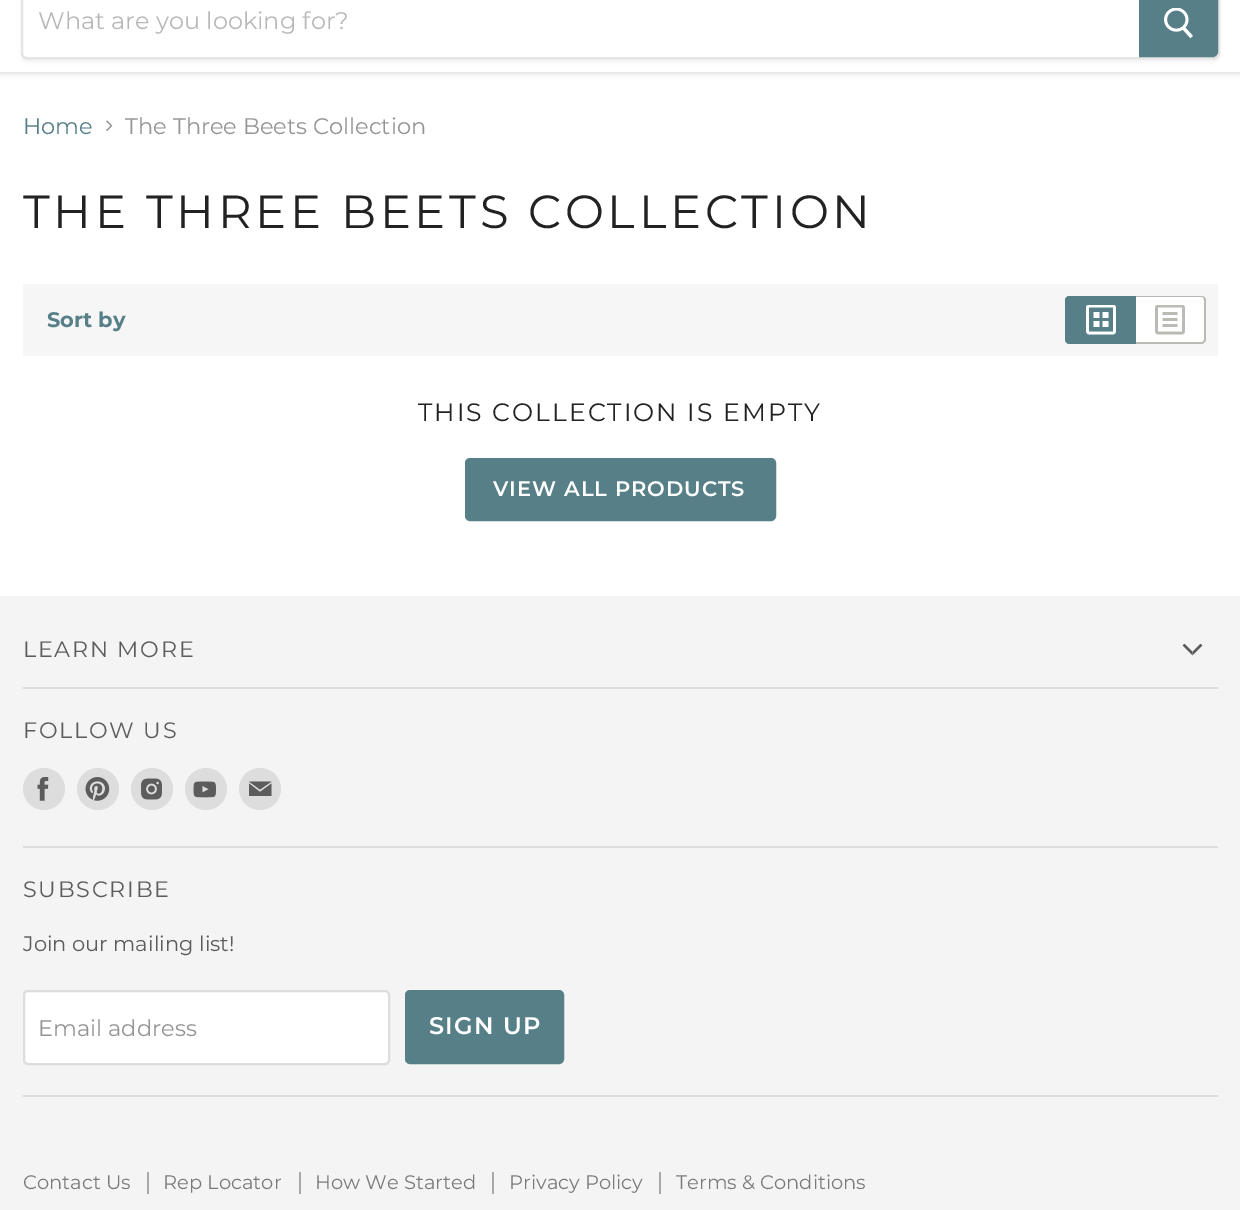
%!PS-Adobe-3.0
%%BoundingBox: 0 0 1240 1210
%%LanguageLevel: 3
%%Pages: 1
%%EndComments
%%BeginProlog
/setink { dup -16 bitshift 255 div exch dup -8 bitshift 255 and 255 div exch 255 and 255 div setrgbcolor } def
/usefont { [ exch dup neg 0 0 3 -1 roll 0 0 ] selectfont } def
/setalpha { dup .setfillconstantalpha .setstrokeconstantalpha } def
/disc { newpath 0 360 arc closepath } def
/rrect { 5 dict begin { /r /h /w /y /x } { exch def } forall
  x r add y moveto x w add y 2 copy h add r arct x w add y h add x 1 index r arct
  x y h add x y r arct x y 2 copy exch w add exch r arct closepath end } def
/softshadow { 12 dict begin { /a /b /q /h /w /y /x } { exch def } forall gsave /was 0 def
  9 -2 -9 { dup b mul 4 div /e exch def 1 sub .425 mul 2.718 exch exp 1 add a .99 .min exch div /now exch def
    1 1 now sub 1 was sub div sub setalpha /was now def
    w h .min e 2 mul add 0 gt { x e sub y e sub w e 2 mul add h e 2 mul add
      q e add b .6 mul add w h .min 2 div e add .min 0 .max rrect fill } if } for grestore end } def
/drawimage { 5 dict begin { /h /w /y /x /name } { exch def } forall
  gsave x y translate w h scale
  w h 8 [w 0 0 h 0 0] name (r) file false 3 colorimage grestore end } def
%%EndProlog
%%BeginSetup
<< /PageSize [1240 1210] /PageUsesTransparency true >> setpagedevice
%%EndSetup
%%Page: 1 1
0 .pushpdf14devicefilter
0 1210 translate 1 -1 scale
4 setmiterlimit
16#FFFFFF setink
0 0 1240 1210 rectfill
gsave
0 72 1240 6 rectclip
16#7F7F7F setink
0 -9 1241 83 0 3 0.25 softshadow
grestore
gsave
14 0 moveto 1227 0 lineto 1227 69 lineto 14 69 lineto closepath 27 -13 moveto 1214 -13 lineto 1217.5 -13 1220 -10.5 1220 -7 curveto 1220 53 lineto 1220 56.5 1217.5 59 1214 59 curveto 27 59 lineto 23.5 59 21 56.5 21 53 curveto 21 -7 lineto 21 -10.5 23.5 -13 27 -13 curveto closepath eoclip newpath
16#7F7F7F setink
21 -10 1199 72 6 2 0.11 softshadow
grestore
0.2 setalpha
16#7F7F7F setink
2 setlinewidth
22 -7 1197 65 5 rrect stroke
/Montserrat-Regular 24 usefont
1 setalpha
16#B8B8B8 setink
38 29 moveto (What are you looking for?) show
16#567F88 setink
1140 -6 moveto 1213 -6 lineto 1215 -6 1217 -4 1217 -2 curveto 1217 52 lineto 1217 54 1215 56 1213 56 curveto 1140 56 lineto closepath gsave fill grestore
stroke
(img1.raw) 1164 8 29 31 drawimage
/Montserrat-Regular 22.5 usefont
23 134 moveto (Home) show
(img2.raw) 106 120 7 12 drawimage
16#949494 setink
125 134 moveto (The Three Beets Collection) show
/Montserrat-Regular 46.5 usefont
16#222222 setink
23 228 moveto 3.75 0 (THE THREE BEETS COLLECTION) ashow
16#F6F6F6 setink
23 284 1195 72 rectfill
/Montserrat-Bold 21 usefont
16#567F88 setink
47 327 moveto (Sort by) show
1070 296 moveto 1136 296 lineto 1136 344 lineto 1070 344 lineto 1067 344 1065 342 1065 339 curveto 1065 301 lineto 1065 298 1067 296 1070 296 curveto closepath fill
1070 296 moveto 1136 296 lineto 1136 344 lineto 1070 344 lineto 1067 344 1065 341 1065 339 curveto 1065 300 lineto 1065 298 1067 296 1070 296 curveto closepath 1070 297 moveto 1136 297 lineto 1136 342 lineto 1070 342 lineto 1068 342 1066 341 1066 339 curveto 1066 300 lineto 1066 298 1068 297 1070 297 curveto closepath eofill
(img3.raw) 1086 305 30 30 drawimage
16#FFFFFF setink
1136 296 moveto 1201 296 lineto 1204 296 1206 298 1206 301 curveto 1206 339 lineto 1206 342 1204 344 1201 344 curveto 1136 344 lineto closepath fill
16#BBBBB5 setink
1136 296 moveto 1202 296 lineto 1204 296 1206 298 1206 300 curveto 1206 339 lineto 1206 341 1204 344 1202 344 curveto 1136 344 lineto closepath 1136 297 moveto 1202 297 lineto 1203 297 1204 298 1204 300 curveto 1204 339 lineto 1204 341 1203 342 1202 342 curveto 1136 342 lineto closepath eofill
(img4.raw) 1155 305 30 30 drawimage
/Montserrat-Regular 25.1 usefont
16#222222 setink
418 421 moveto 2 0 (THIS COLLECTION IS EMPTY) ashow
16#567F88 setink
466 459 309 61 4 rrect gsave fill grestore
stroke
/Montserrat-SemiBold 21 usefont
16#FFFFFF setink
493 496 moveto 1 0 (VIEW ALL PRODUCTS) ashow
16#F5F4F4 setink
0 596 1240 614 rectfill
16#DEDDDD setink
23 687 1195 2 rectfill
/Montserrat-Regular 22.25 usefont
16#5C5C5C setink
23 657 moveto 1.75 0 (LEARN MORE) ashow
(img5.raw) 1182 644 21 12 drawimage
16#DEDDDD setink
23 846 1195 2 rectfill
16#5C5C5C setink
23 738 moveto 1.75 0 (FOLLOW US) ashow
16#DEDDDD setink
44 789 21 disc fill
(img6.raw) 37 777 12 24 drawimage
98 789 21 disc fill
(img7.raw) 85 777 25 24 drawimage
152 789 21 disc fill
(img8.raw) 141 778 21 22 drawimage
206 789 21 disc fill
(img9.raw) 193 781 23 17 drawimage
260 789 21 disc fill
16#5C5C5C setink
271.5 781.5 moveto 249 781.5 lineto 260 789.5 lineto closepath 260 792 moveto 249 783.5 lineto 249 796 lineto 271.5 796 lineto 271.5 783.5 lineto closepath eofill
16#DEDDDD setink
23 1095 1195 2 rectfill
16#5C5C5C setink
23 897 moveto 1.75 0 (SUBSCRIBE) ashow
/Montserrat-Regular 21 usefont
23 951 moveto (Join our mailing list!) show
16#FFFFFF setink
24 991 365 73 4 rrect gsave fill grestore
16#DDDDDD setink
stroke
/Montserrat-Regular 22.5 usefont
16#949494 setink
38 1036 moveto (Email address) show
16#567F88 setink
406 991 157 72 4 rrect gsave fill grestore
stroke
/Montserrat-SemiBold 24 usefont
16#FFFFFF setink
429 1034 moveto 1.25 0 (SIGN UP) ashow
16#A9A8A8 setink
147 1172 2 22 rectfill
/Montserrat-Regular 19.5 usefont
16#7B7A7A setink
23 1189 moveto (Contact Us) show
16#A9A8A8 setink
299 1172 2 22 rectfill
16#7B7A7A setink
163 1189 moveto (Rep Locator) show
16#A9A8A8 setink
492 1172 2 22 rectfill
16#7B7A7A setink
315 1189 moveto (How We Started) show
16#A9A8A8 setink
659 1172 2 22 rectfill
16#7B7A7A setink
509 1189 moveto (Privacy Policy) show
676 1189 moveto (Terms & Conditions) show
.poppdf14devicefilter showpage
%%EOF
